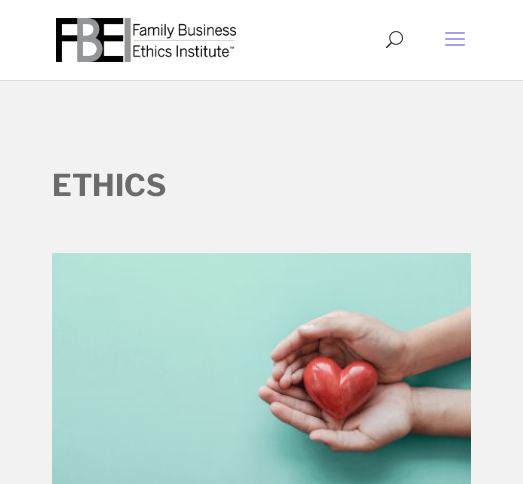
%!PS-Adobe-3.0
%%BoundingBox: 0 0 523 484
%%LanguageLevel: 3
%%Pages: 1
%%EndComments
%%BeginProlog
/setink { dup -16 bitshift 255 div exch dup -8 bitshift 255 and 255 div exch 255 and 255 div setrgbcolor } def
/usefont { [ exch dup neg 0 0 3 -1 roll 0 0 ] selectfont } def
/drawimage { 5 dict begin { /h /w /y /x /name } { exch def } forall
  gsave x y translate w h scale
  w h 8 [w 0 0 h 0 0] name (r) file false 3 colorimage grestore end } def
%%EndProlog
%%BeginSetup
<< /PageSize [523 484] >> setpagedevice
%%EndSetup
%%Page: 1 1
0 484 translate 1 -1 scale
4 setmiterlimit
16#F2F2F2 setink
0 0 523 484 rectfill
16#DADADA setink
0 80 523 1 rectfill
16#FFFFFF setink
0 0 523 80 rectfill
(img1.raw) 56 18 180 44 drawimage
(img2.raw) 386 31 17 18 drawimage
(img3.raw) 445 32 20 14 drawimage
/LibreFranklin-Thin 30 usefont
16#6B6B6B setink
52 196 moveto (ETHICS) show
(img4.raw) 52 253 419 231 drawimage
showpage
%%EOF
